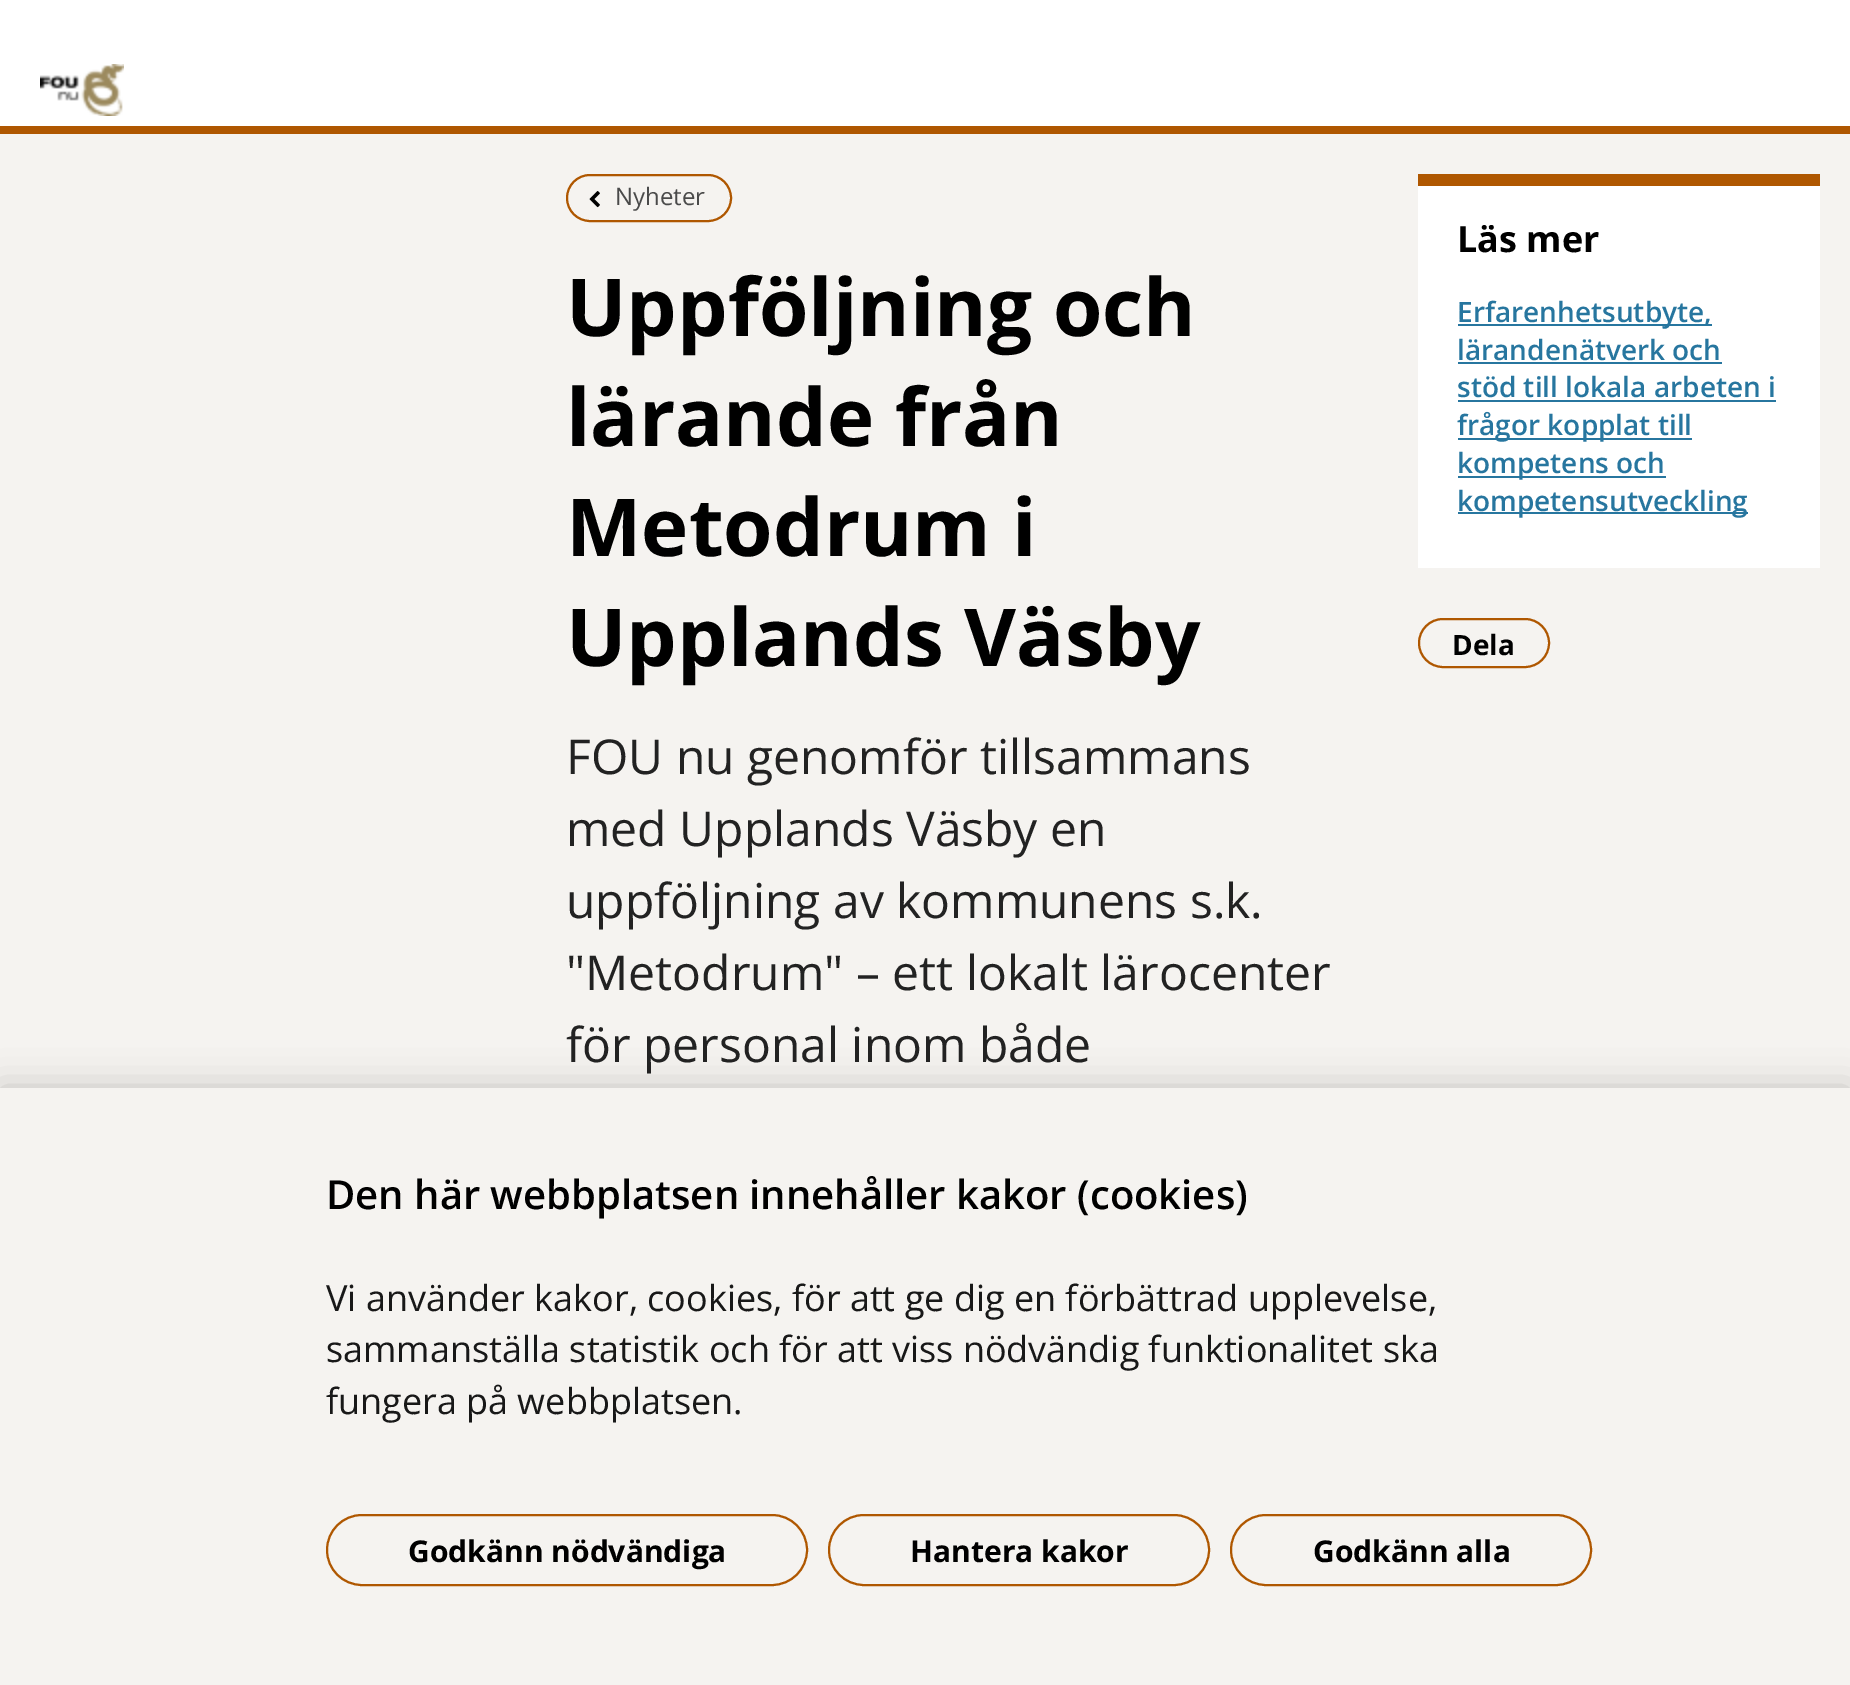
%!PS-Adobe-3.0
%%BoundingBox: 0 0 1850 1685
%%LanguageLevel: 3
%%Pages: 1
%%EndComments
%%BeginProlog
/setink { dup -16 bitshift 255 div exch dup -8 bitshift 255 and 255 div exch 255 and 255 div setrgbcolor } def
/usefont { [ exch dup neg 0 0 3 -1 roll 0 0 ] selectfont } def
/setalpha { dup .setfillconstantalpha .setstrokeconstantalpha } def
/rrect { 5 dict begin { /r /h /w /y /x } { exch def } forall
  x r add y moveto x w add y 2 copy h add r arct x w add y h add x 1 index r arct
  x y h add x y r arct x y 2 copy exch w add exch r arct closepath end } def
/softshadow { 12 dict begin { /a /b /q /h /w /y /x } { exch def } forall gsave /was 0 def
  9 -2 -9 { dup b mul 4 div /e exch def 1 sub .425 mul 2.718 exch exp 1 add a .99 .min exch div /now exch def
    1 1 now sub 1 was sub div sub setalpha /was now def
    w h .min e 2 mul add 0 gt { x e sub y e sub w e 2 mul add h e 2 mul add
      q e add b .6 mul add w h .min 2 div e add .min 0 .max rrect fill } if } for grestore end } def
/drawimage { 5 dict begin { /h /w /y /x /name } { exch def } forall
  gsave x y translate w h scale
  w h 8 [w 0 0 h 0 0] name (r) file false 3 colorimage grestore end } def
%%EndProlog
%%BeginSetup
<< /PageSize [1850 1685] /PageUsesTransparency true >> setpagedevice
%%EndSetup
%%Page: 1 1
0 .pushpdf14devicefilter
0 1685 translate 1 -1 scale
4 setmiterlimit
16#F5F3F0 setink
0 0 1850 1685 rectfill
16#FFFFFF setink
0 0 1850 126 rectfill
16#AF5700 setink
0 126 1850 8 rectfill
(img1.raw) 40 64 84 52 drawimage
2 setlinewidth
567 175 164 46 23 rrect stroke
(img2.raw) 589 191 11 17 drawimage
/OpenSans-Regular 24 usefont
16#4A4A4A setink
615 205 moveto (Nyheter) show
/OpenSans-Bold 80 usefont
16#000000 setink
[
    [(Uppföljning och) 566 336]
    [(lärande från) 566 446]
    [(Metodrum i) 566 556]
    [(Upplands Väsby) 566 666]
] { aload pop moveto show } forall
/OpenSans-Regular 48 usefont
16#222222 setink
[
    [(FOU nu genomför tillsammans) 566 774]
    [(med Upplands Väsby en) 566 846]
    [(uppföljning av kommunens s.k.) 566 918]
    [("Metodrum" – ett lokalt lärocenter) 566 990]
    [(för personal inom både) 566 1062]
] { aload pop moveto show } forall
16#FFFFFF setink
1418 186 402 382 rectfill
16#AF5700 setink
1418 174 402 12 rectfill
/OpenSans-Bold 36 usefont
16#000000 setink
1457 252 moveto (Läs mer) show
16#27769F setink
1458 324 254 2 rectfill
/OpenSans-SemiBold 28 usefont
1457 322 moveto (Erfarenhetsutbyte,) show
1457 360 moveto (lärandenätverk och) show
1458 362 264 2 rectfill
1457 397 moveto (stöd till lokala arbeten i) show
1458 400 318 2 rectfill
1458 438 234 2 rectfill
1457 435 moveto (frågor kopplat till) show
1458 476 208 2 rectfill
1457 473 moveto (kompetens och) show
1458 512 290 2 rectfill
1457 511 moveto (kompetensutveckling) show
16#AF5700 setink
1419 619 130 48 24 rrect stroke
/OpenSans-Bold 28 usefont
16#000000 setink
1452 655 moveto (Dela) show
0 1088 1850 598 0 18 0.2 softshadow
16#F5F3F0 setink
0 1088 1850 597 rectfill
/OpenSans-SemiBold 40 usefont
16#000000 setink
326 1209 moveto (Den här webbplatsen innehåller kakor \(cookies\)) show
/OpenSans-Regular 36 usefont
16#181818 setink
[
    [(Vi använder kakor, cookies, för att ge dig en förbättrad upplevelse,) 326 1311]
    [(sammanställa statistik och för att viss nödvändig funktionalitet ska) 326 1362]
    [(fungera på webbplatsen.) 326 1414]
] { aload pop moveto show } forall
16#AF5700 setink
327 1515 480 70 35 rrect stroke
/OpenSans-Bold 30 usefont
16#000000 setink
408 1562 moveto (Godkänn nödvändiga) show
16#AF5700 setink
829 1515 380 70 35 rrect stroke
16#000000 setink
910 1562 moveto (Hantera kakor) show
16#AF5700 setink
1231 1515 360 70 35 rrect stroke
16#000000 setink
1313 1562 moveto (Godkänn alla) show
.poppdf14devicefilter showpage
%%EOF
